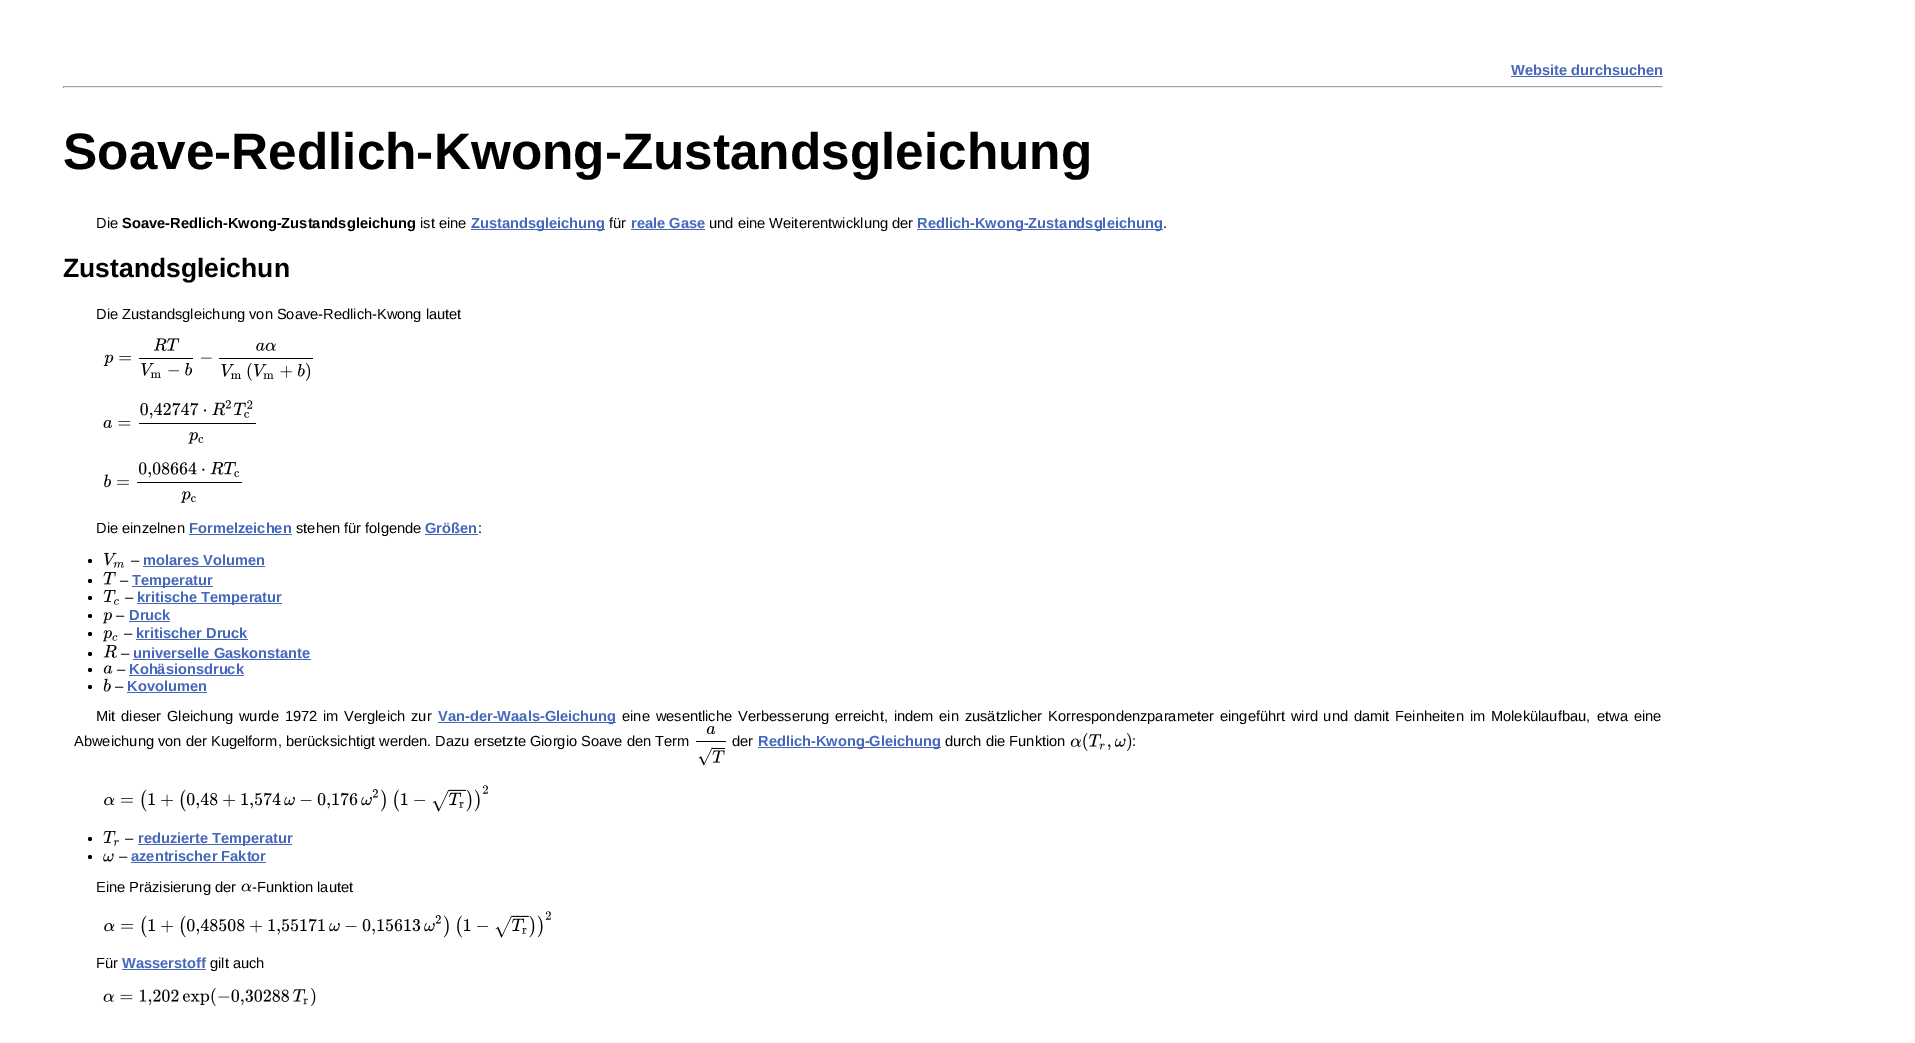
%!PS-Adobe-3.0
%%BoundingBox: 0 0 1915 1043
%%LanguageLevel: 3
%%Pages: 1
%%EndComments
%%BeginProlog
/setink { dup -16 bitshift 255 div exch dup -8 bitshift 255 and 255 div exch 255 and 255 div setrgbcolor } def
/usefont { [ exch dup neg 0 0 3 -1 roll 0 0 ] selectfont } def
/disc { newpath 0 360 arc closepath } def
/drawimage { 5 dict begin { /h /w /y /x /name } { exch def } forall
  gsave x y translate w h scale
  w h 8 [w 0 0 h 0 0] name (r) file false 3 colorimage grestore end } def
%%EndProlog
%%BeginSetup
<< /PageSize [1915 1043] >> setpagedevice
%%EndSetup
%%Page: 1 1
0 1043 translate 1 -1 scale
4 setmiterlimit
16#FFFFFF setink
0 0 1915 1043 rectfill
/LiberationSans-Bold 14.65 usefont
16#4466BB setink
1511 75 moveto (Website durchsuchen) show
[
    [1511 76 152 1 16#4466BB]
    [63 86 1600 1 16#9F9F9F]
    [1662 86 1 2 16#EEEEEE]
    [63 87 1600 1 16#EEEEEE]
    [63 86 1 2 16#9F9F9F]
] { aload pop setink rectfill } forall
/LiberationSans-Bold 51.3 usefont
16#000000 setink
63 169 moveto (Soave-Redlich-Kwong-Zustandsgleichung) show
/LiberationSans-Regular 14.65 usefont
96 228 moveto (Die) show
/LiberationSans-Bold 14.65 usefont
122 228 moveto (Soave-Redlich-Kwong-Zustandsgleichung) show
/LiberationSans-Regular 14.65 usefont
420 228 moveto (ist eine) show
16#4466BB setink
471 229 134 1 rectfill
/LiberationSans-Bold 14.65 usefont
471 228 moveto (Zustandsgleichung) show
/LiberationSans-Regular 14.65 usefont
16#000000 setink
609 228 moveto (für) show
/LiberationSans-Bold 14.65 usefont
16#4466BB setink
631 228 moveto (reale Gase) show
631 229 74 1 rectfill
/LiberationSans-Regular 14.65 usefont
16#000000 setink
709 228 moveto (und eine Weiterentwicklung der) show
16#4466BB setink
917 229 246 1 rectfill
/LiberationSans-Bold 14.65 usefont
917 228 moveto (Redlich-Kwong-Zustandsgleichung) show
/LiberationSans-Regular 14.65 usefont
16#000000 setink
1163 228 moveto (.) show
/LiberationSans-Bold 26.5 usefont
63 277 moveto (Zustandsgleichun) show
/LiberationSans-Regular 14.65 usefont
96 319 moveto (Die Zustandsgleichung von Soave-Redlich-Kwong lautet) show
(img1.raw) 103 338 210 43 drawimage
(img2.raw) 103 400 153 44 drawimage
(img3.raw) 104 462 138 41 drawimage
96 533 moveto (Die einzelnen) show
/LiberationSans-Bold 14.65 usefont
16#4466BB setink
189 533 moveto (Formelzeichen) show
189 534 103 1 rectfill
/LiberationSans-Regular 14.65 usefont
16#000000 setink
296 533 moveto (stehen für folgende) show
/LiberationSans-Bold 14.65 usefont
16#4466BB setink
425 533 moveto (Größen) show
425 534 53 1 rectfill
/LiberationSans-Regular 14.65 usefont
16#000000 setink
478 533 moveto (:) show
90 561 2 disc fill
(img4.raw) 104 552 20 16 drawimage
131 565 moveto (–) show
/LiberationSans-Bold 14.65 usefont
16#4466BB setink
143 565 moveto (molares Volumen) show
143 566 122 1 rectfill
16#000000 setink
90 581 2 disc fill
(img5.raw) 103 572 13 13 drawimage
/LiberationSans-Regular 14.65 usefont
120 585 moveto (–) show
16#4466BB setink
132 586 81 1 rectfill
/LiberationSans-Bold 14.65 usefont
132 585 moveto (Temperatur) show
16#000000 setink
90 598 2 disc fill
(img6.raw) 103 590 16 15 drawimage
/LiberationSans-Regular 14.65 usefont
125 602 moveto (–) show
16#4466BB setink
137 603 145 1 rectfill
/LiberationSans-Bold 14.65 usefont
137 602 moveto (kritische Temperatur) show
16#000000 setink
90 616 2 disc fill
(img7.raw) 103 612 9 12 drawimage
/LiberationSans-Regular 14.65 usefont
116 620 moveto (–) show
/LiberationSans-Bold 14.65 usefont
16#4466BB setink
129 620 moveto (Druck) show
129 621 41 1 rectfill
16#000000 setink
90 634 2 disc fill
(img8.raw) 103 630 15 12 drawimage
/LiberationSans-Regular 14.65 usefont
124 638 moveto (–) show
/LiberationSans-Bold 14.65 usefont
16#4466BB setink
136 638 moveto (kritischer Druck) show
136 639 112 1 rectfill
16#000000 setink
90 654 2 disc fill
(img9.raw) 103 644 14 14 drawimage
/LiberationSans-Regular 14.65 usefont
121 658 moveto (–) show
/LiberationSans-Bold 14.65 usefont
16#4466BB setink
133 658 moveto (universelle Gaskonstante) show
133 659 178 1 rectfill
16#000000 setink
90 670 2 disc fill
(img10.raw) 103 665 10 9 drawimage
/LiberationSans-Regular 14.65 usefont
117 674 moveto (–) show
/LiberationSans-Bold 14.65 usefont
16#4466BB setink
129 674 moveto (Kohäsionsdruck) show
129 675 115 1 rectfill
16#000000 setink
90 687 2 disc fill
(img11.raw) 103 678 8 14 drawimage
/LiberationSans-Regular 14.65 usefont
115 691 moveto (–) show
/LiberationSans-Bold 14.65 usefont
16#4466BB setink
127 691 moveto (Kovolumen) show
127 692 80 1 rectfill
/LiberationSans-Regular 14.65 usefont
16#000000 setink
96 721 moveto 1.75 0 32 (Mit dieser Gleichung wurde 1972 im Vergleich zur) widthshow
16#4466BB setink
438 722 178 1 rectfill
/LiberationSans-Bold 14.65 usefont
438 721 moveto (Van-der-Waals-Gleichung) show
/LiberationSans-Regular 14.65 usefont
16#000000 setink
622 721 moveto 1.75 0 32 (eine wesentliche Verbesserung erreicht, indem ein zusätzlicher) widthshow
1048 721 moveto 1.75 0 32 (Korrespondenzparameter eingeführt wird und damit Feinheiten im Molekülaufbau,) widthshow
1597 721 moveto 1.75 0 32 (etwa eine) widthshow
74 746 moveto (Abweichung von der Kugelform, berücksichtigt werden. Dazu ersetzte Giorgio Soave den Term) show
(img12.raw) 696 726 30 40 drawimage
732 746 moveto (der) show
16#4466BB setink
758 747 183 1 rectfill
/LiberationSans-Bold 14.65 usefont
758 746 moveto (Redlich-Kwong-Gleichung) show
/LiberationSans-Regular 14.65 usefont
16#000000 setink
945 746 moveto (durch die Funktion) show
(img13.raw) 1070 733 62 18 drawimage
1132 746 moveto (:) show
(img14.raw) 104 785 384 27 drawimage
90 839 2 disc fill
(img15.raw) 103 831 16 15 drawimage
125 843 moveto (–) show
16#4466BB setink
138 844 154 1 rectfill
/LiberationSans-Bold 14.65 usefont
138 843 moveto (reduzierte Temperatur) show
16#000000 setink
90 857 2 disc fill
(img16.raw) 103 853 11 9 drawimage
/LiberationSans-Regular 14.65 usefont
119 861 moveto (–) show
/LiberationSans-Bold 14.65 usefont
16#4466BB setink
131 861 moveto (azentrischer Faktor) show
131 862 135 1 rectfill
/LiberationSans-Regular 14.65 usefont
16#000000 setink
96 892 moveto (Eine Präzisierung der) show
(img17.raw) 241 883 11 9 drawimage
252 892 moveto (-Funktion lautet) show
(img18.raw) 104 911 447 27 drawimage
96 968 moveto (Für) show
/LiberationSans-Bold 14.65 usefont
16#4466BB setink
122 968 moveto (Wasserstoff) show
122 969 84 1 rectfill
/LiberationSans-Regular 14.65 usefont
16#000000 setink
210 968 moveto (gilt auch) show
(img19.raw) 103 988 213 18 drawimage
showpage
%%EOF
